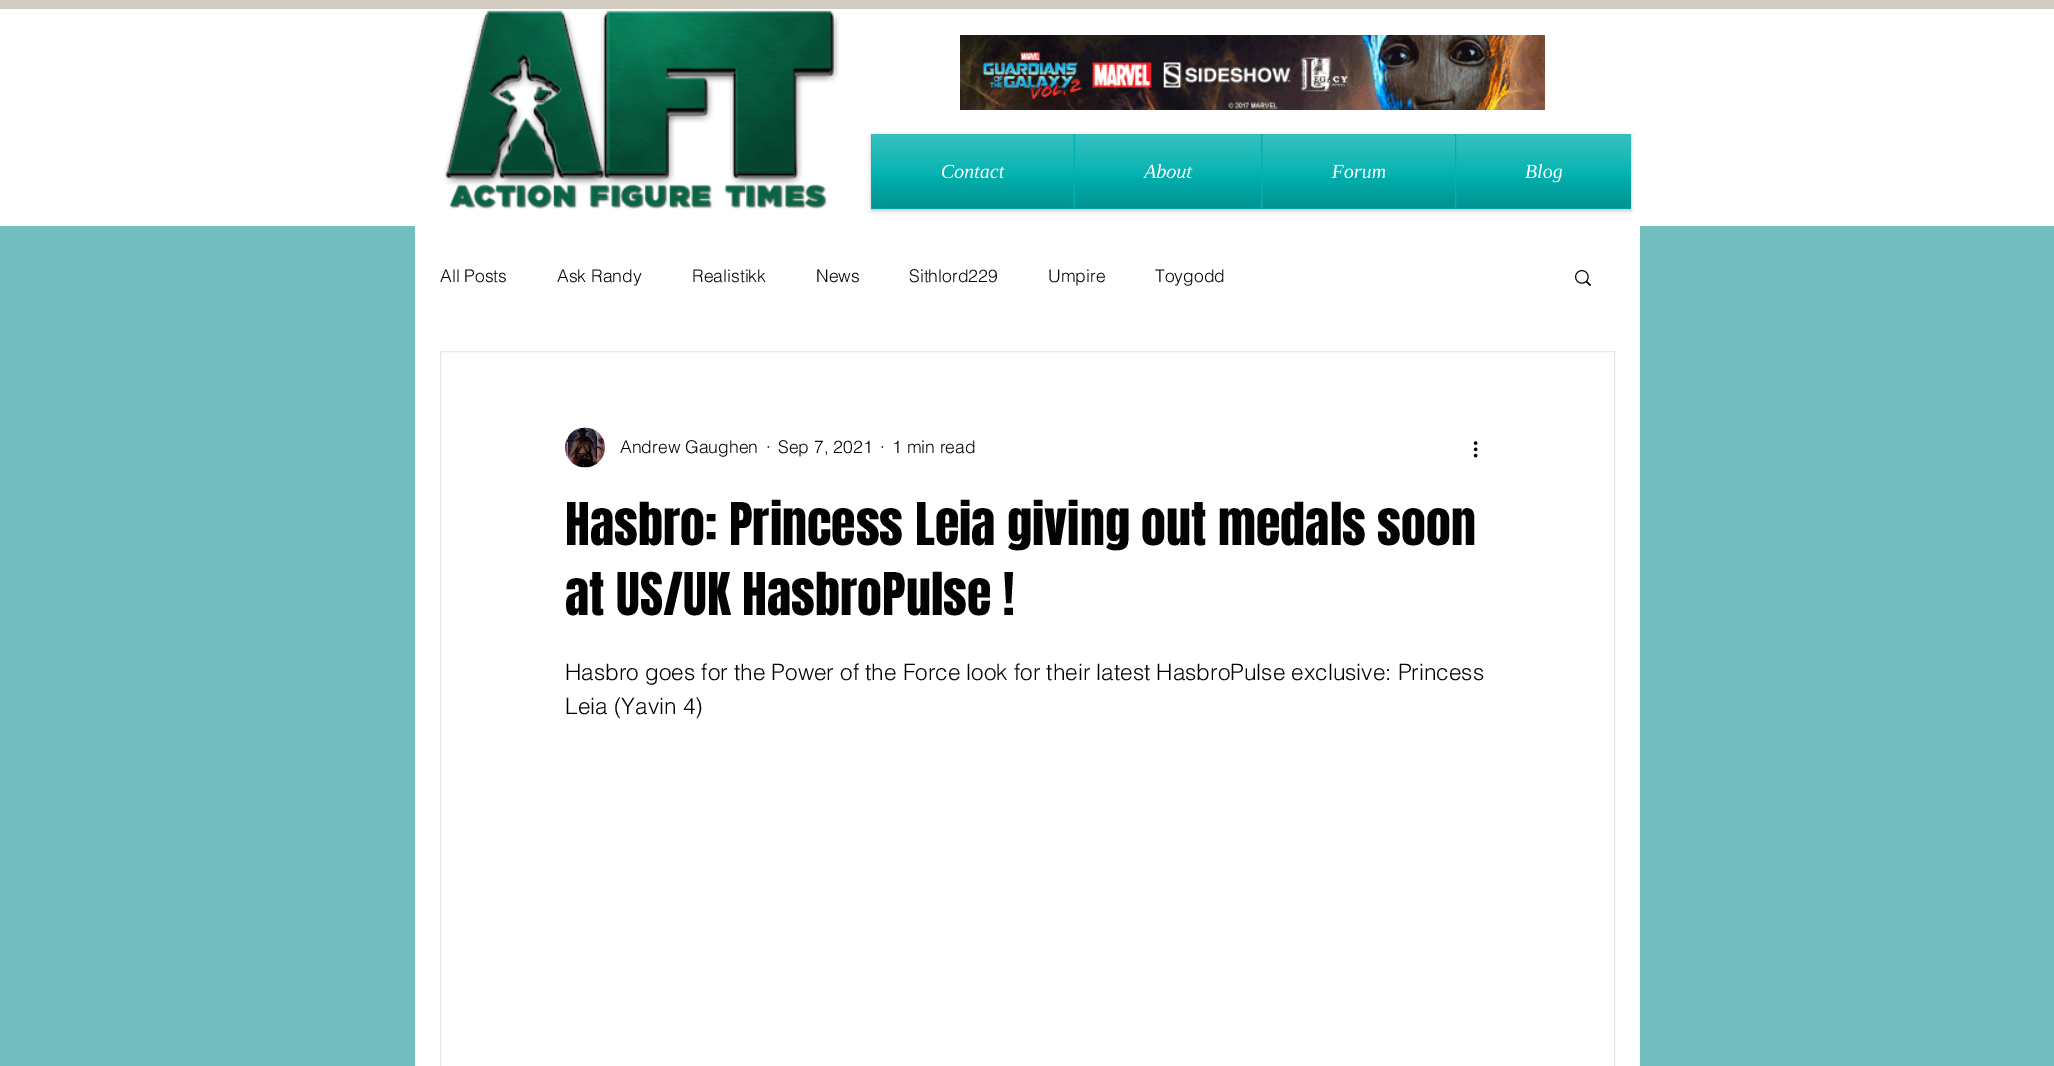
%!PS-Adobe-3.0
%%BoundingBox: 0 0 2054 1066
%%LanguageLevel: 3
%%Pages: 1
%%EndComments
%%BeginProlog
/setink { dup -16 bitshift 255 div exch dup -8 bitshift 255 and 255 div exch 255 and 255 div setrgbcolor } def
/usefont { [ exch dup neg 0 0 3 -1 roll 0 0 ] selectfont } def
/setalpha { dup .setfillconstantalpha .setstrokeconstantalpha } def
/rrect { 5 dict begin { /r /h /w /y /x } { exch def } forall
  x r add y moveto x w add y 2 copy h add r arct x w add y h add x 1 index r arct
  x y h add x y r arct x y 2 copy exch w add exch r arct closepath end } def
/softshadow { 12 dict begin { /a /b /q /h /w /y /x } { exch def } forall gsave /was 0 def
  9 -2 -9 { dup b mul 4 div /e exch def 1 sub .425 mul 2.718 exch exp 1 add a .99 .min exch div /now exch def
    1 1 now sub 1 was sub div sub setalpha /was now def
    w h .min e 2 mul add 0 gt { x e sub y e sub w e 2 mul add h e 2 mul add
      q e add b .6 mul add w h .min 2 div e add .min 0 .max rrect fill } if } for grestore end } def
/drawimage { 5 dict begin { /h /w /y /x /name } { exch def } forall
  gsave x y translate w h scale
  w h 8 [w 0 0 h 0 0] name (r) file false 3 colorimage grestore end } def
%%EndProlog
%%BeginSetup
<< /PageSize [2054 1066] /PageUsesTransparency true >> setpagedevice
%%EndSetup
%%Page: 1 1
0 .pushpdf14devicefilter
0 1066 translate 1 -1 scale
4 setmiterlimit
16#73BFBF setink
0 0 2054 1066 rectfill
16#FFFFFF setink
0 9 2054 217 rectfill
16#D1CBC0 setink
0 0 2054 9 rectfill
(img1.raw) 444 10 395 199 drawimage
(img2.raw) 960 35 585 75 drawimage
16#A29E9E setink
871 136 760 75 0 2 0.6 softshadow
16#01B1AF setink
871 134 760 75 rectfill
/LiberationSerif-Italic 20 usefont
16#FFFFFF setink
941 178 moveto (Contact) show
(img3.raw) 871 134 203 40 drawimage
(img4.raw) 871 177 203 32 drawimage
1144 178 moveto (About) show
(img5.raw) 1075 134 186 40 drawimage
(img6.raw) 1075 177 186 32 drawimage
1332 178 moveto (Forum) show
(img7.raw) 1262 134 193 40 drawimage
(img8.raw) 1262 177 193 32 drawimage
1525 178 moveto (Blog) show
(img9.raw) 1456 134 175 40 drawimage
(img10.raw) 1456 177 175 32 drawimage
415 226 1225 840 rectfill
/helvetica-Light 17.5 usefont
16#030303 setink
[
    [(All Posts) 440 282]
    [(Ask Randy) 557 282]
    [(Realistikk) 692 282]
    [(News) 816 282]
    [(Sithlord229) 909 282]
    [(Umpire) 1048 282]
    [(Toygodd) 1155 282]
] { aload pop moveto show } forall
(img11.raw) 1575 270 16 16 drawimage
16#E9E7E7 setink
440.5 351.5 1174 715 rectstroke
(img12.raw) 565 427 40 41 drawimage
16#030303 setink
[
    [(Andrew Gaughen) 620 453]
    [(·) 766 453]
    [(Sep 7, 2021) 778 453]
    [(·) 880 453]
    [(1 min read) 892 453]
] { aload pop moveto show } forall
(img13.raw) 1473 441 5 17 drawimage
/Anton-Regular 50 usefont
565 545 moveto (Hasbro: Princess Leia giving out medals soon) show
565 615 moveto (at US/UK HasbroPulse !) show
/helvetica-Light 22.5 usefont
565 680 moveto (Hasbro goes for the Power of the Force look for their latest HasbroPulse exclusive: Princess) show
565 714 moveto (Leia \(Yavin 4\)) show
.poppdf14devicefilter showpage
%%EOF
